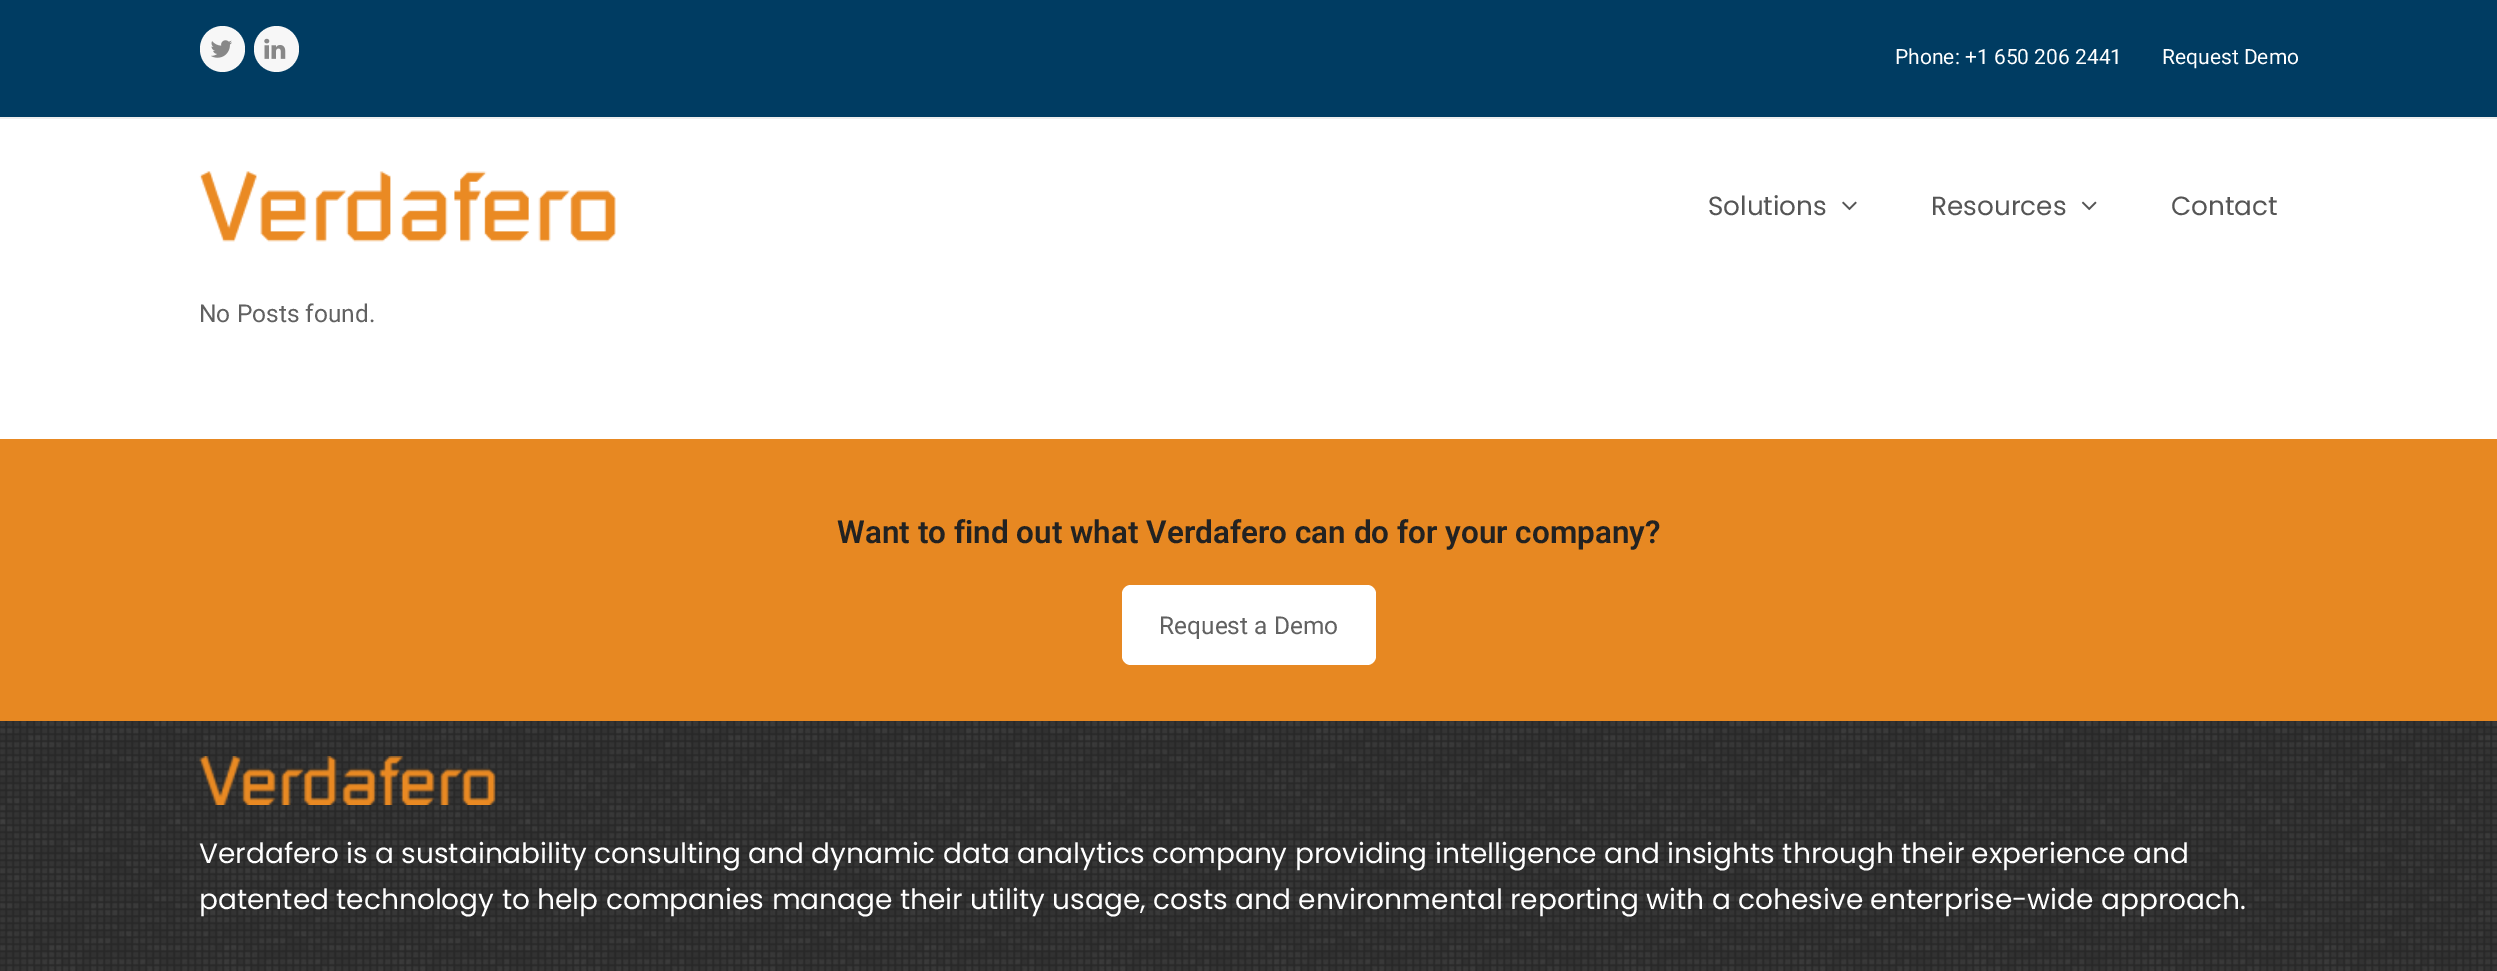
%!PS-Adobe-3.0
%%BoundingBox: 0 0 2497 971
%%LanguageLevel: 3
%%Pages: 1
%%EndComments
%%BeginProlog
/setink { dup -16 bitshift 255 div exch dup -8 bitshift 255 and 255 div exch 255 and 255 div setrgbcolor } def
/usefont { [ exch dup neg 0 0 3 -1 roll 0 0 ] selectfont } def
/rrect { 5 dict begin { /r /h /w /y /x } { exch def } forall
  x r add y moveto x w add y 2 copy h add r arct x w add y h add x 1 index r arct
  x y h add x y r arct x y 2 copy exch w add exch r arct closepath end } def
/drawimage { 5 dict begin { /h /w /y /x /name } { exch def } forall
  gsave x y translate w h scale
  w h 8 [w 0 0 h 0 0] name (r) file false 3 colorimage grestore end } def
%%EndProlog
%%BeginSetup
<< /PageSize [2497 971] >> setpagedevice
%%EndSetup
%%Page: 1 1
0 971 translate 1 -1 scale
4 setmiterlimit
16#FFFFFF setink
0 0 2497 971 rectfill
16#003C62 setink
0 0 2497 117 rectfill
16#EEEEEE setink
0 117 2497 2 rectfill
16#F7F7F7 setink
200 26 45 46 22.5 rrect fill
(img1.raw) 211 40 21 18 drawimage
254 26 45 46 22.5 rrect fill
(img2.raw) 264 38 22 21 drawimage
/Roboto-Regular 21 usefont
16#FFFFFF setink
1895 64 moveto (Phone: +1 650 206 2441) show
2162 64 moveto (Request Demo) show
(img3.raw) 199 171 417 71 drawimage
/Poppins-Regular 26.25 usefont
16#555555 setink
1708 215 moveto (Solutions) show
(img4.raw) 1842 201 15 10 drawimage
1931 215 moveto (Resources) show
(img5.raw) 2081 201 16 10 drawimage
2171 215 moveto (Contact) show
/Roboto-Regular 24.5 usefont
16#616161 setink
199 322 moveto (No Posts found.) show
16#E78822 setink
0 439 2497 282 rectfill
/Roboto-SemiBold 31.5 usefont
16#222222 setink
837 543 moveto (Want to find out what Verdafero can do for your company?) show
16#FFFFFF setink
1122 585 254 80 9 rrect fill
/Roboto-Regular 24.5 usefont
16#616161 setink
1159 634 moveto (Request a Demo) show
(img6.raw) 0 721 2497 250 drawimage
(img7.raw) 199 756 297 49 drawimage
/Poppins-Regular 28 usefont
16#FFFFFF setink
199 863 moveto (Verdafero is a sustainability consulting and dynamic data analytics company providing intelligence and insights through their experience and) show
199 909 moveto (patented technology to help companies manage their utility usage, costs and environmental reporting with a cohesive enterprise-wide approach.) show
showpage
%%EOF
